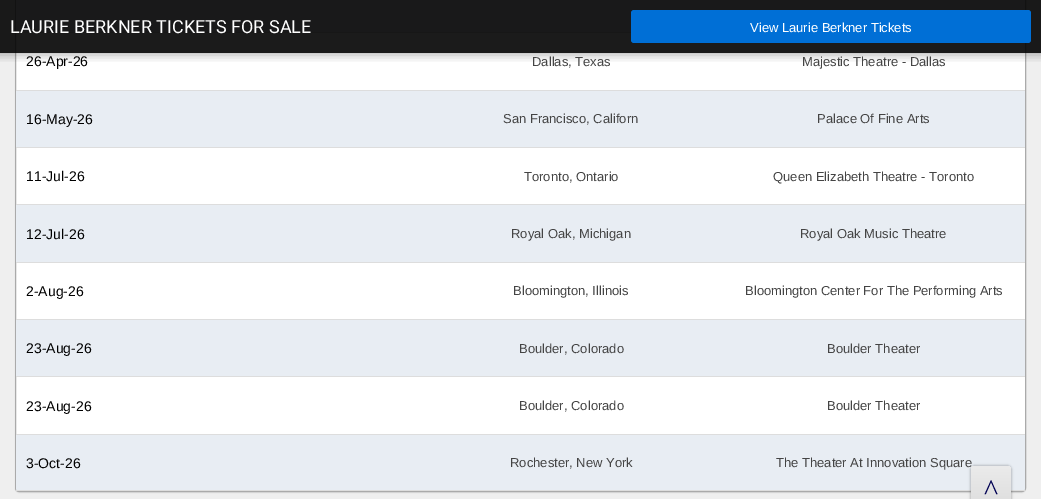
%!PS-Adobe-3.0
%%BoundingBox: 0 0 1041 499
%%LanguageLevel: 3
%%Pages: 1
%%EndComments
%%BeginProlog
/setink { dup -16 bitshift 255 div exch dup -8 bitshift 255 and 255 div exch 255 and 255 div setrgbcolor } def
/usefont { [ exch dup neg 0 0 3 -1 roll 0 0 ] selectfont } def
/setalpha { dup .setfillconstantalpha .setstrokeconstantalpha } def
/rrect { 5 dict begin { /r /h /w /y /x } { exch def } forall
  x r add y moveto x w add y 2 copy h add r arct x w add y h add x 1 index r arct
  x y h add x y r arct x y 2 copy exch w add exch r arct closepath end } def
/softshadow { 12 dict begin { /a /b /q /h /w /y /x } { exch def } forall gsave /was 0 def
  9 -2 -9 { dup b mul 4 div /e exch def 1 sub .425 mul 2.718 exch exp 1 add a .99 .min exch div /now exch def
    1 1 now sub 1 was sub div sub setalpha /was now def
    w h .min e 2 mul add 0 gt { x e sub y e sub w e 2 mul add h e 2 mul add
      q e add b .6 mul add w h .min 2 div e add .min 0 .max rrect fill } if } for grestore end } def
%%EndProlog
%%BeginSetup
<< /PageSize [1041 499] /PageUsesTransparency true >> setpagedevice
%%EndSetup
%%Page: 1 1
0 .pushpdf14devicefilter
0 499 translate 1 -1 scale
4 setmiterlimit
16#EFEFEF setink
0 0 1041 499 rectfill
16#000000 setink
15 -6 1011 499 4 0.5 0.05 softshadow
16#FFFFFF setink
15.5 -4.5 1010 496 3.5 rrect gsave fill grestore
16#AAAAAA setink
stroke
16#E8EDF3 setink
16 0 1009 32 rectfill
16#DDDDDD setink
16 32 615 1 rectfill
gsave
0 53 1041 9 rectclip
16#000000 setink
-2 -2 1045 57 0 5 0.3 softshadow
grestore
0.9 setalpha
16#020202 setink
0 0 1041 53 rectfill
/Roboto-Regular 18 usefont
1 setalpha
16#FFFFFF setink
10 33 moveto (LAURIE BERKNER TICKETS FOR SALE) show
16#006FD6 setink
631 10 400 33 3 rrect fill
/LiberationSans-Regular 13 usefont
16#FFFFFF setink
750 32 moveto (View Laurie Berkner Tickets) show
16#DDDDDD setink
16 90 1009 1 rectfill
/LiberationSans-Regular 14 usefont
16#000000 setink
26 66 moveto (26-Apr-26) show
/LiberationSans-Regular 13 usefont
16#444444 setink
532 66 moveto (Dallas, Texas) show
802 66 moveto (Majestic Theatre - Dallas) show
16#E8EDF3 setink
16 91 1009 56 rectfill
16#DDDDDD setink
16 147 1009 1 rectfill
/LiberationSans-Regular 14 usefont
16#000000 setink
26 124 moveto (16-May-26) show
/LiberationSans-Regular 13 usefont
16#444444 setink
503 123 moveto (San Francisco, Californ) show
817 123 moveto (Palace Of Fine Arts) show
16#DDDDDD setink
16 204 1009 1 rectfill
/LiberationSans-Regular 14 usefont
16#000000 setink
26 181 moveto (11-Jul-26) show
/LiberationSans-Regular 13 usefont
16#444444 setink
524 181 moveto (Toronto, Ontario) show
773 181 moveto (Queen Elizabeth Theatre - Toronto) show
16#E8EDF3 setink
16 205 1009 57 rectfill
16#DDDDDD setink
16 262 1009 1 rectfill
/LiberationSans-Regular 14 usefont
16#000000 setink
26 239 moveto (12-Jul-26) show
/LiberationSans-Regular 13 usefont
16#444444 setink
511 238 moveto (Royal Oak, Michigan) show
800 238 moveto (Royal Oak Music Theatre) show
16#DDDDDD setink
16 319 1009 1 rectfill
/LiberationSans-Regular 14 usefont
16#000000 setink
26 296 moveto (2-Aug-26) show
/LiberationSans-Regular 13 usefont
16#444444 setink
513 295 moveto (Bloomington, Illinois) show
745 295 moveto (Bloomington Center For The Performing Arts) show
16#E8EDF3 setink
16 320 1009 56 rectfill
16#DDDDDD setink
16 376 1009 1 rectfill
/LiberationSans-Regular 14 usefont
16#000000 setink
26 353 moveto (23-Aug-26) show
/LiberationSans-Regular 13 usefont
16#444444 setink
519 353 moveto (Boulder, Colorado) show
827 353 moveto (Boulder Theater) show
16#DDDDDD setink
16 434 1009 1 rectfill
/LiberationSans-Regular 14 usefont
16#000000 setink
26 411 moveto (23-Aug-26) show
/LiberationSans-Regular 13 usefont
16#444444 setink
519 410 moveto (Boulder, Colorado) show
827 410 moveto (Boulder Theater) show
16#E8EDF3 setink
16 435 moveto 1025 435 lineto 1025 488 lineto 1025 489.5 1023.5 491 1022 491 curveto 19 491 lineto 17.5 491 16 489.5 16 488 curveto closepath fill
gsave
16 -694 1009 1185 3 rrect clip newpath
16#DDDDDD setink
16 490 1009 1 rectfill
grestore
/LiberationSans-Regular 14 usefont
16#000000 setink
26 468 moveto (3-Oct-26) show
/LiberationSans-Regular 13 usefont
16#444444 setink
510 467 moveto (Rochester, New York) show
776 467 moveto (The Theater At Innovation Square) show
16#000000 setink
970 465 42 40 5 1 0.2 softshadow
gsave 975 466 moveto 1007 466 lineto 1009 466 1011 468 1011 470 curveto 1011 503 lineto 971 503 lineto 971 470 lineto 971 468 973 466 975 466 curveto closepath clip newpath
<< /ShadingType 2 /ColorSpace /DeviceRGB /Coords [991 466 991 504] /Extend [true true] /Function << /FunctionType 2 /Domain [0 1] /C0 [0.922 0.922 0.922] /C1 [0.871 0.871 0.871] /N 1 >> >> shfill grestore
/LiberationSerif-Regular 30 usefont
16#000053 setink
984 500 moveto (^) show
.poppdf14devicefilter showpage
%%EOF
